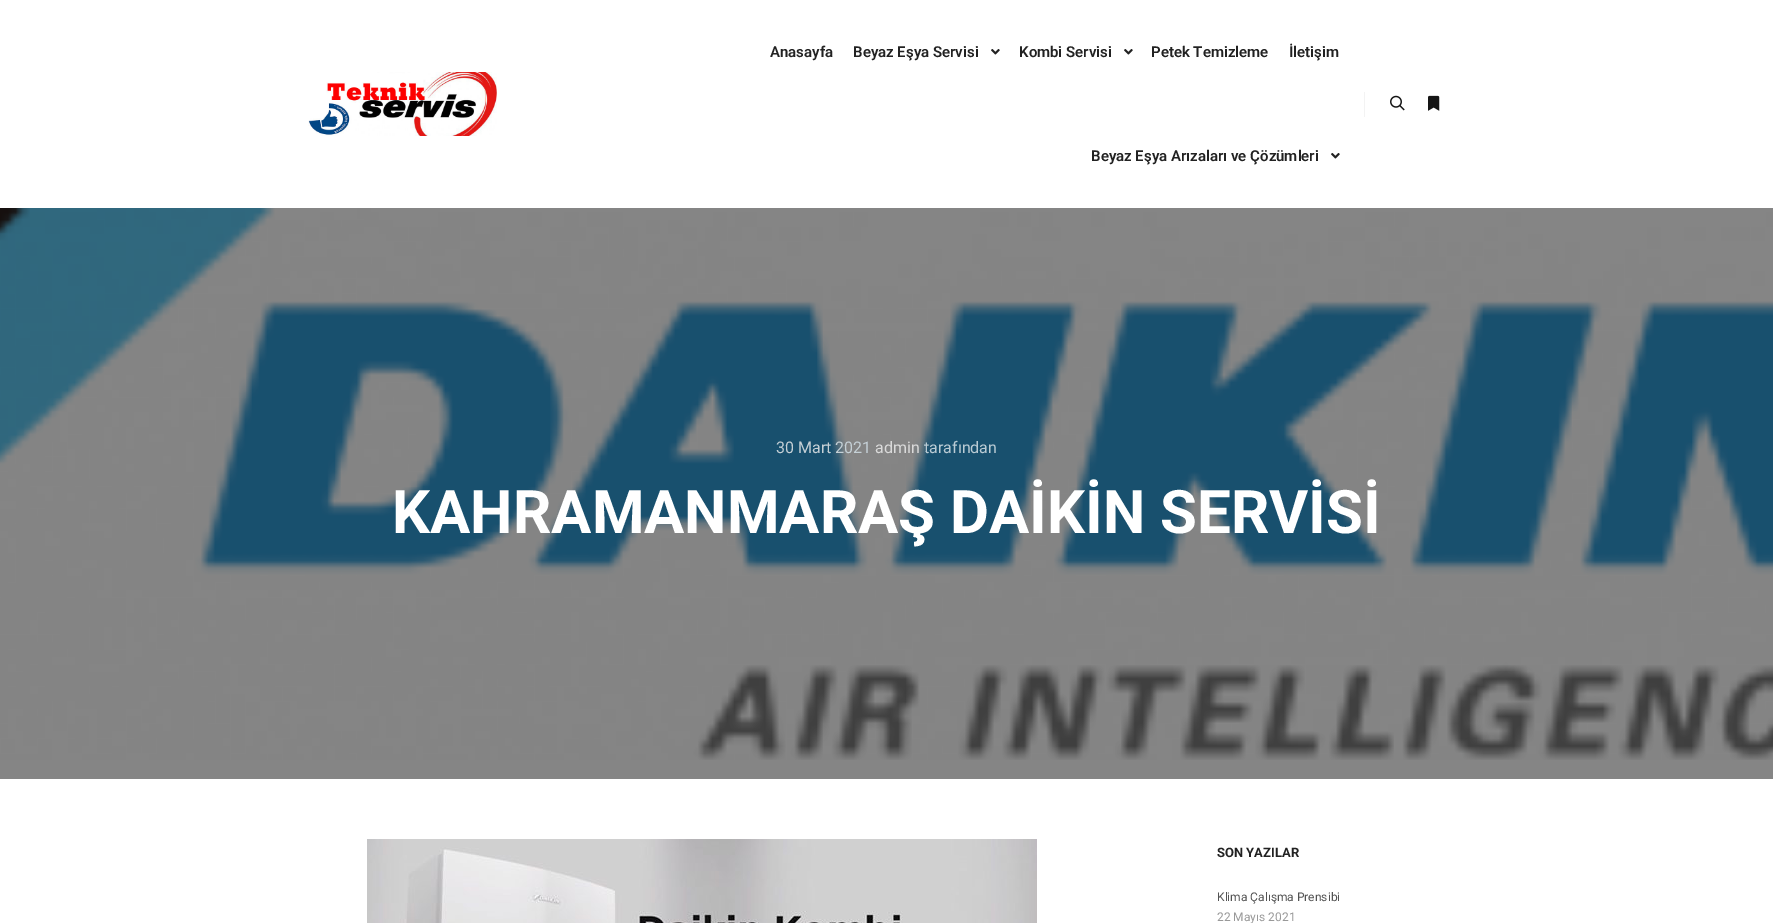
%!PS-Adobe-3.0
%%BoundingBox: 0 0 1773 923
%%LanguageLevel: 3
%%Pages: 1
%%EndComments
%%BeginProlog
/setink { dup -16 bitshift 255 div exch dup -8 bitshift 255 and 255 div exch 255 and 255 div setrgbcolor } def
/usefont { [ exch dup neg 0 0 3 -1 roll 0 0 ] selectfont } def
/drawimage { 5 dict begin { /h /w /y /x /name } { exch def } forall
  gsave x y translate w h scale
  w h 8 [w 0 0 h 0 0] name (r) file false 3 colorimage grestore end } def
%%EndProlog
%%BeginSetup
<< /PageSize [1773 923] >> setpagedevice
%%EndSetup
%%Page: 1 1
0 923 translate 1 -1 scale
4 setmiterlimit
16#FFFFFF setink
0 0 1773 923 rectfill
(img1.raw) 308 72 189 64 drawimage
/Roboto-SemiBold 15 usefont
16#222222 setink
770 57 moveto (Anasayfa) show
853 57 moveto (Beyaz Eşya Servisi) show
(img2.raw) 991 49 9 6 drawimage
1019 57 moveto (Kombi Servisi) show
(img2.raw) 1124 49 9 6 drawimage
[
    [(Petek Temizleme) 1151 57]
    [(İletişim) 1289 57]
    [(Beyaz Eşya Arızaları ve Çözümleri) 1091 161]
] { aload pop moveto show } forall
(img2.raw) 1331 153 9 6 drawimage
16#F3F3F3 setink
1364 92 1 25 rectfill
(img3.raw) 1390 95 15 16 drawimage
(img4.raw) 1428 95 12 16 drawimage
(img5.raw) 0 208 1773 552 drawimage
/Roboto-Regular 16 usefont
16#C5D0D6 setink
776 453 moveto (30 Mart 2021) show
16#DADADA setink
875 453 moveto (admin) show
16#BACBD4 setink
924 453 moveto (tarafından) show
/Roboto-Bold 60 usefont
16#FFFFFF setink
392 533 moveto (KAHRAMANMARAŞ DAİKİN SERVİSİ) show
(img6.raw) 367 839 670 84 drawimage
/Roboto-Bold 13 usefont
16#222222 setink
1217 857 moveto (SON YAZILAR) show
/Roboto-Regular 12 usefont
16#535353 setink
1217 901 moveto (Klima Çalışma Prensibi) show
16#999999 setink
1217 921 moveto (22 Mayıs 2021) show
16#858585 setink
0 760 1773 19 rectfill
showpage
%%EOF
